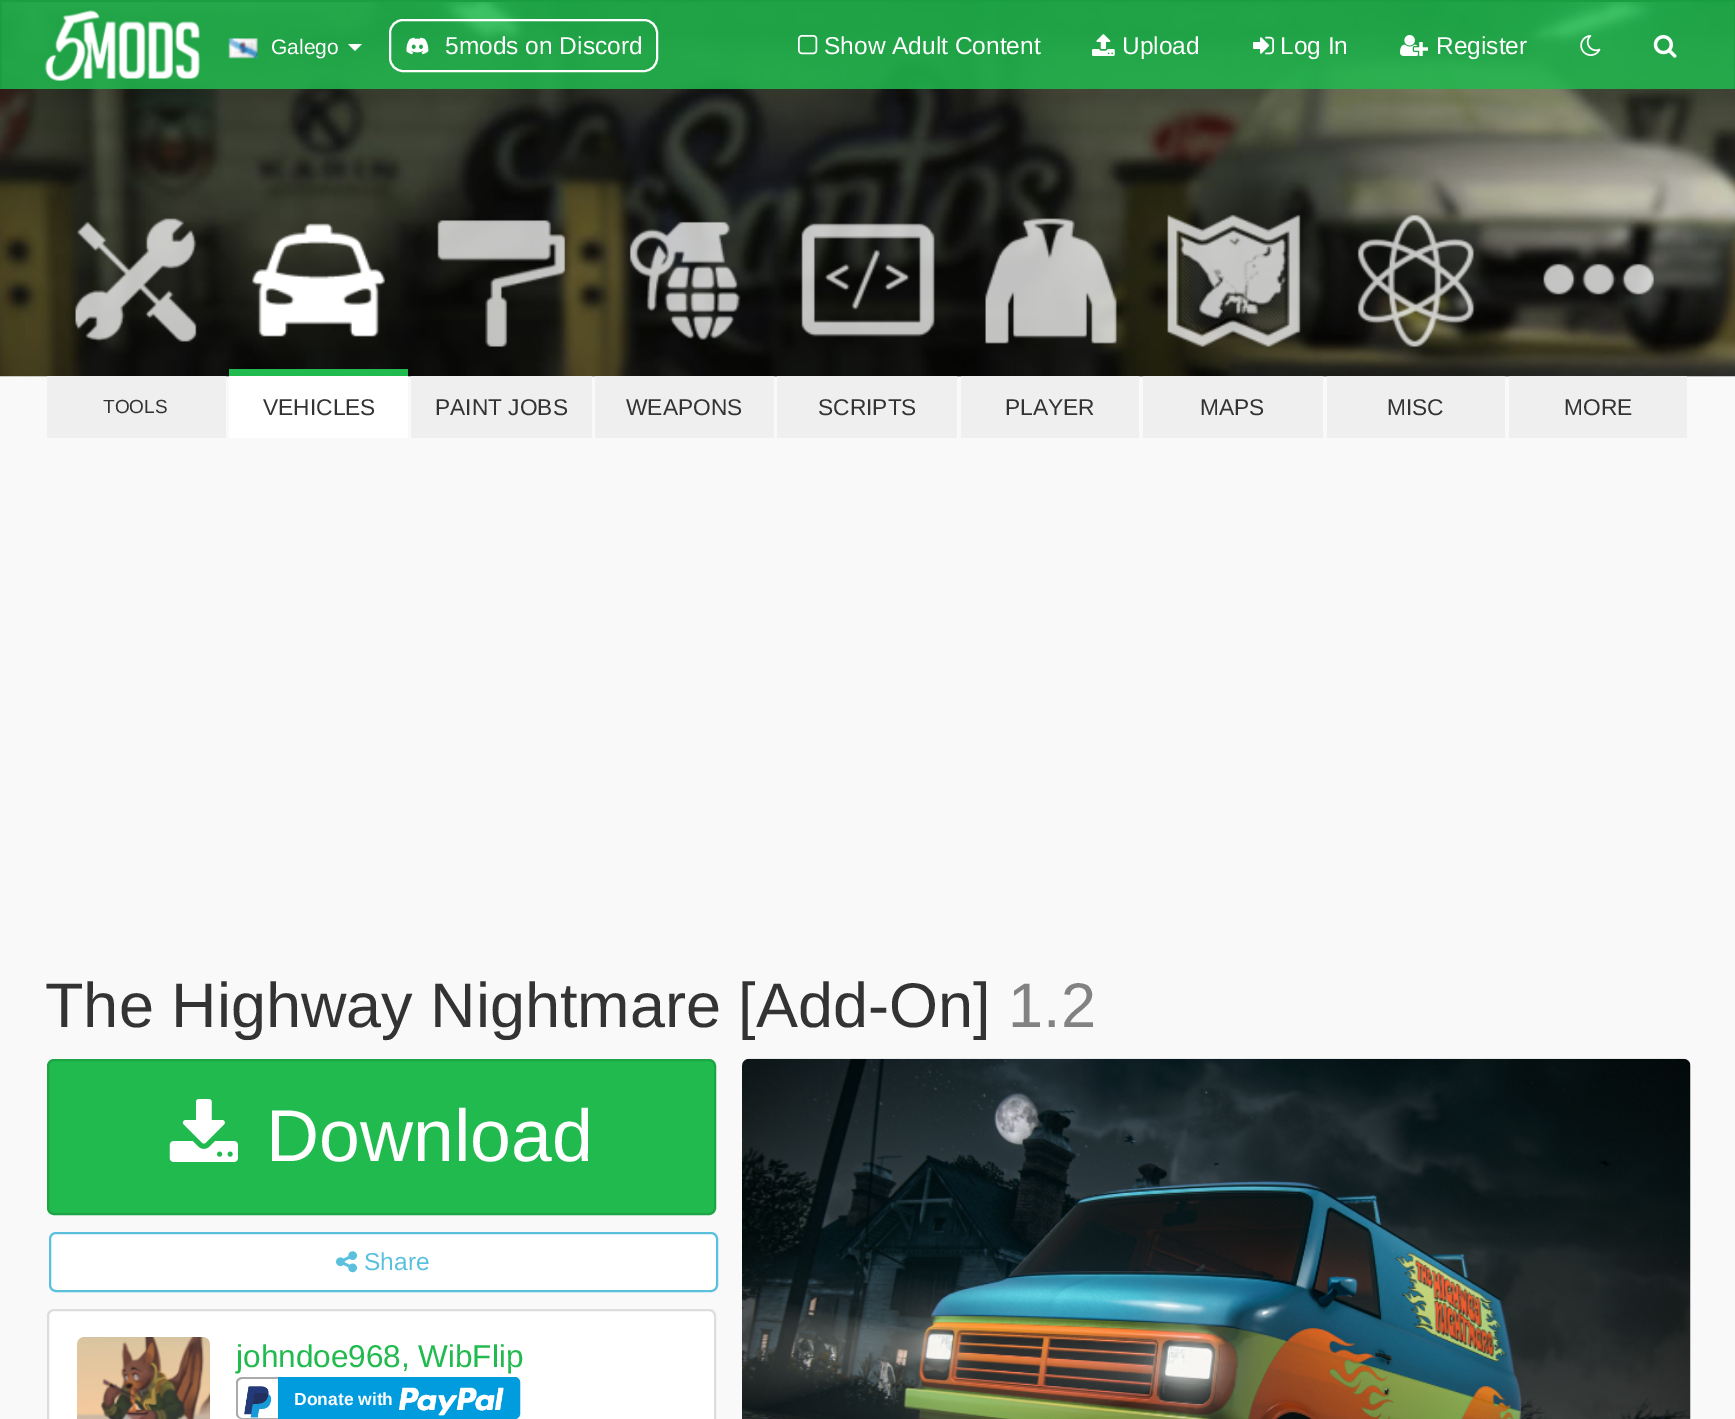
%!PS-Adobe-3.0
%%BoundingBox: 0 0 1735 1419
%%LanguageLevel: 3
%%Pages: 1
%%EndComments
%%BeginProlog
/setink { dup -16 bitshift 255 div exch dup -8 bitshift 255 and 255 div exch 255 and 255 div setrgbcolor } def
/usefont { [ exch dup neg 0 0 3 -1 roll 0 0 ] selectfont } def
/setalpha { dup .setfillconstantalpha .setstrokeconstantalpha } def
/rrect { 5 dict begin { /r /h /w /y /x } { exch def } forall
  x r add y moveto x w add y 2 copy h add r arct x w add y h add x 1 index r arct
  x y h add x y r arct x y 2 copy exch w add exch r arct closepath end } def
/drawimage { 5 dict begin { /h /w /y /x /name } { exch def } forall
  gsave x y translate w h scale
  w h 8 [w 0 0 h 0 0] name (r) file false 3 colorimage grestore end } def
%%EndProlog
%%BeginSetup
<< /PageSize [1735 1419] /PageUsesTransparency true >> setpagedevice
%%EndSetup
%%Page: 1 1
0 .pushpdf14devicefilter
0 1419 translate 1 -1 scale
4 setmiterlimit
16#F9F9F9 setink
0 0 1735 1419 rectfill
(img10.raw) 0 2 1735 375 drawimage
0.85 setalpha
[
    [2 2 1732 87 16#20BA4E]
] { aload pop setink rectfill } forall
1 setalpha
[
    [0 0 1735 2 16#1B9E42]
    [1734 0 1 89 16#1B9E42]
    [0 0 2 89 16#1B9E42]
] { aload pop setink rectfill } forall
(img1.raw) 44 10 156 71 drawimage
(img2.raw) 228 38 30 21 drawimage
/LiberationSans-Regular 21 usefont
16#FFFFFF setink
271 54 moveto (Galego) show
348 44 moveto 362 44 lineto 355 51 lineto closepath fill
2 setlinewidth
390 20 267 51 13 rrect stroke
(img3.raw) 406 37 23 18 drawimage
/LiberationSans-Regular 24.5 usefont
445 54 moveto (5mods on Discord) show
(img4.raw) 798 35 20 20 drawimage
824 54 moveto (Show Adult Content) show
(img5.raw) 1092 34 23 22 drawimage
1122 54 moveto (Upload) show
(img6.raw) 1253 36 21 19 drawimage
1280 54 moveto (Log In) show
(img7.raw) 1400 35 28 21 drawimage
1436 54 moveto (Register) show
(img8.raw) 1580 35 21 21 drawimage
(img9.raw) 1653 35 24 23 drawimage
(img11.raw) 75 218 122 124 drawimage
16#EFEFEF setink
47 376 179 62 rectfill
/LiberationSans-Regular 19 usefont
16#333333 setink
103 413 moveto (TOOLS) show
(img12.raw) 252 223 134 114 drawimage
16#20BA4E setink
229 369 179 7 rectfill
16#FFFFFF setink
229 376 179 62 rectfill
/LiberationSans-Regular 22.75 usefont
16#333333 setink
263 415 moveto (VEHICLES) show
(img13.raw) 437 220 129 127 drawimage
16#EFEFEF setink
411 376 181 62 rectfill
16#333333 setink
435 415 moveto (PAINT JOBS) show
(img14.raw) 629 221 112 119 drawimage
16#EFEFEF setink
595 376 179 62 rectfill
16#333333 setink
626 415 moveto (WEAPONS) show
(img15.raw) 801 223 134 114 drawimage
16#EFEFEF setink
777 376 180 62 rectfill
16#333333 setink
818 415 moveto (SCRIPTS) show
(img16.raw) 985 218 132 126 drawimage
16#EFEFEF setink
961 376 178 62 rectfill
16#333333 setink
1005 415 moveto (PLAYER) show
(img17.raw) 1167 214 134 133 drawimage
16#EFEFEF setink
1143 376 180 62 rectfill
16#333333 setink
1200 415 moveto (MAPS) show
(img18.raw) 1357 214 117 133 drawimage
16#EFEFEF setink
1327 376 178 62 rectfill
16#333333 setink
1387 415 moveto (MISC) show
(img19.raw) 1543 263 111 32 drawimage
16#EFEFEF setink
1509 376 178 62 rectfill
16#333333 setink
1564 415 moveto (MORE) show
/LiberationSans-Regular 63 usefont
45 1027 moveto (The Highway Nightmare [Add-On]) show
16#828282 setink
1008 1027 moveto (1.2) show
16#20BA4E setink
48 1060 667 154 6 rrect gsave fill grestore
16#1CA445 setink
stroke
(img20.raw) 169 1099 69 63 drawimage
/LiberationSans-Regular 73.5 usefont
16#FFFFFF setink
266 1161 moveto (Download) show
50 1233 667 58 6 rrect gsave fill grestore
16#5BC0DE setink
stroke
(img21.raw) 336 1251 21 22 drawimage
/LiberationSans-Regular 24.5 usefont
364 1270 moveto (Share) show
16#FFFFFF setink
48 1310 667 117 6 rrect gsave fill grestore
16#DDDDDD setink
stroke
(img22.raw) 77 1337 133 82 drawimage
/LiberationSans-Regular 31.5 usefont
16#20BA4E setink
236 1367 moveto (johndoe968, WibFlip) show
16#AAAAAA setink
242 1377 moveto 278 1377 lineto 278 1419 lineto 242 1419 lineto 239 1419 236 1417 236 1414 curveto 236 1382 lineto 236 1380 239 1377 242 1377 curveto closepath 242 1379 moveto 278 1379 lineto 278 1418 lineto 242 1418 lineto 240 1418 238 1416 238 1414 curveto 238 1382 lineto 238 1381 240 1379 242 1379 curveto closepath eofill
(img23.raw) 244 1386 28 32 drawimage
16#009CDE setink
279 1378 moveto 515 1378 lineto 517 1378 519 1380 519 1382 curveto 519 1414 lineto 519 1416 517 1418 515 1418 curveto 279 1418 lineto closepath gsave fill grestore
stroke
/LiberationSans-Bold 17.5 usefont
16#FFFFFF setink
294 1405 moveto (Donate with) show
(img24.raw) 399 1387 105 29 drawimage
(img25.raw) 742 1058 949 361 drawimage
.poppdf14devicefilter showpage
%%EOF
